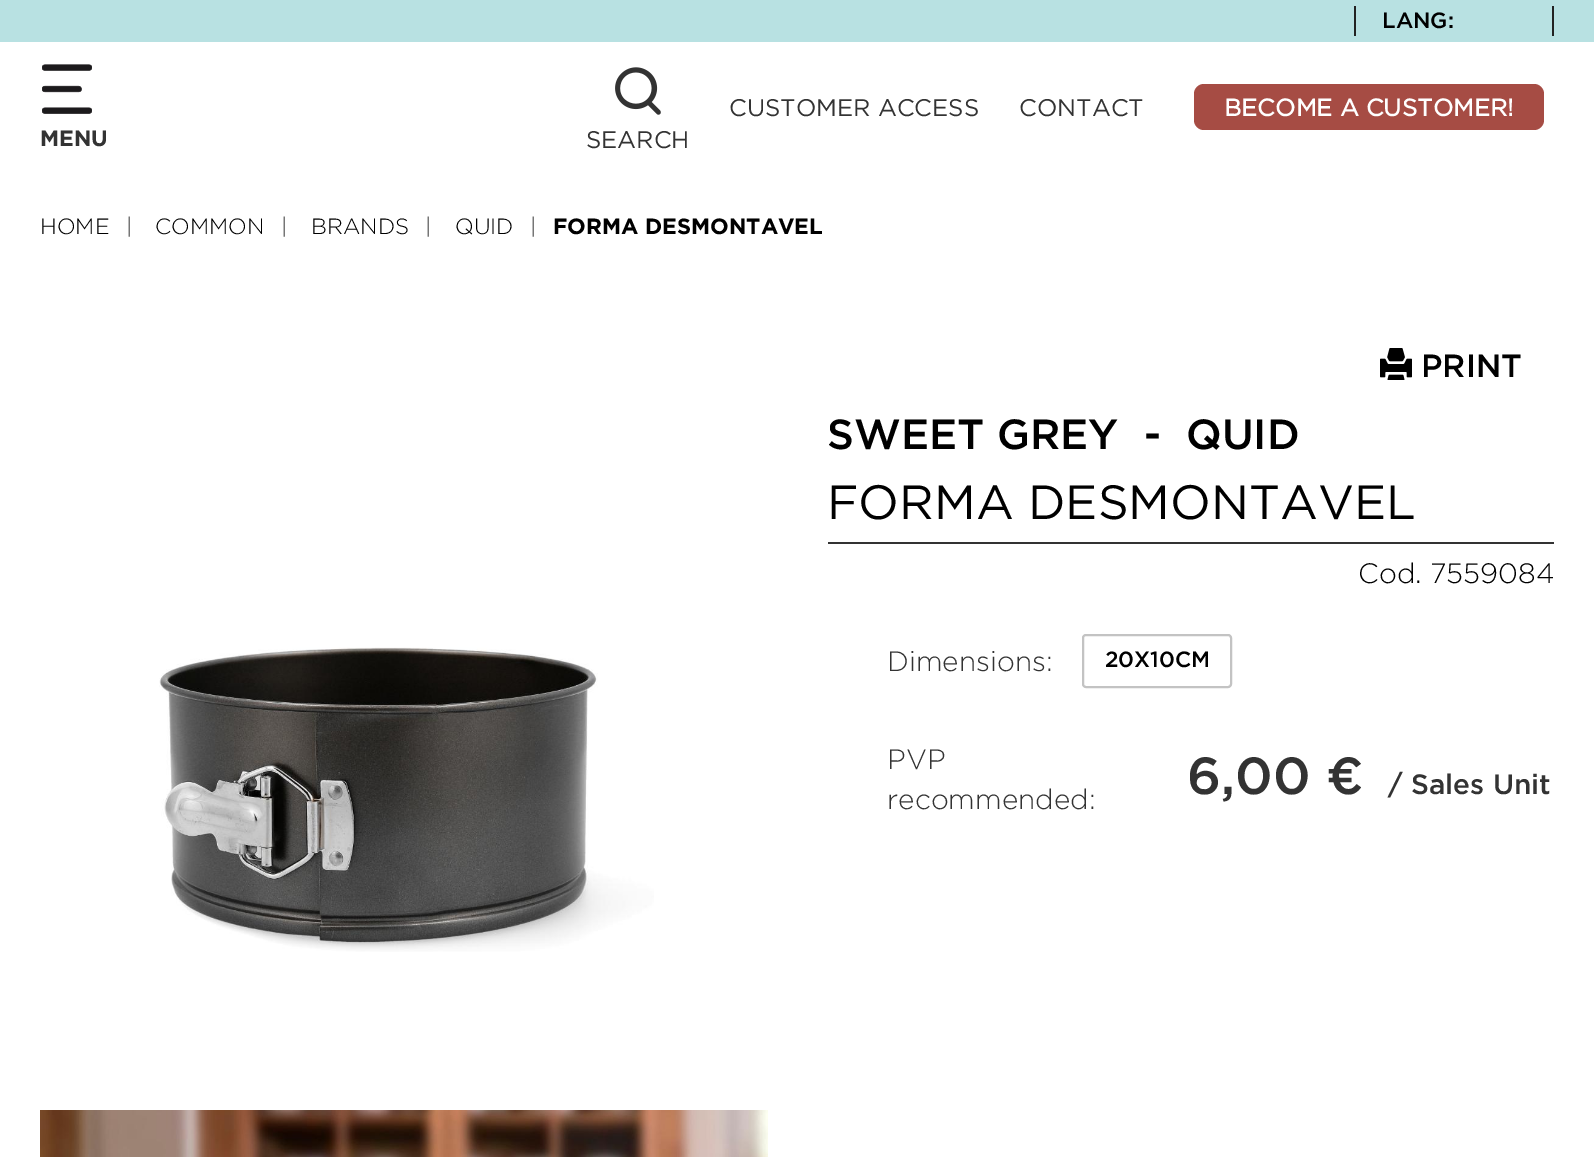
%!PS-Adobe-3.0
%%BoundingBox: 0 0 1594 1157
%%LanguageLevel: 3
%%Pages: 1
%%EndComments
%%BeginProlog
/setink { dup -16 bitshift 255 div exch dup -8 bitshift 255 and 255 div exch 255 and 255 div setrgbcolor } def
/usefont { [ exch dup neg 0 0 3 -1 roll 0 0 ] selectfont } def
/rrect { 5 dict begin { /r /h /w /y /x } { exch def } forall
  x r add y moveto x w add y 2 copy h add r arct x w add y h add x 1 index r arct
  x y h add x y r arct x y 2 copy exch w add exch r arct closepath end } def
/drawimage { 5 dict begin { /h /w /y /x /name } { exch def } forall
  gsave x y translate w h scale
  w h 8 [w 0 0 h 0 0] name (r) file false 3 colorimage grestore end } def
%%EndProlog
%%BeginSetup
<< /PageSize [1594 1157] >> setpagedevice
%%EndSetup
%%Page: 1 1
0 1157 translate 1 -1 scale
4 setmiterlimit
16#FFFFFF setink
0 0 1594 1157 rectfill
[
    [0 0 1594 42 16#B8E1E2]
    [1552 6 2 30 16#222222]
    [1354 6 2 30 16#222222]
] { aload pop setink rectfill } forall
/Gotham-Medium 22 usefont
16#000000 setink
1382 28 moveto (LANG:) show
/Gotham-Regular 24 usefont
16#333333 setink
729 116 moveto (CUSTOMER ACCESS) show
1019 116 moveto (CONTACT) show
16#A64C44 setink
1194 84 350 46 10 rrect fill
/Gotham-Bold 24 usefont
16#FFFFFF setink
1224 116 moveto (BECOME A CUSTOMER!) show
(img1.raw) 42 64 50 50 drawimage
/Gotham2-Bold 22 usefont
16#333333 setink
40 146 moveto (MENU) show
(img2.raw) 615 67 46 48 drawimage
/Gotham-Regular 24 usefont
586 148 moveto (SEARCH) show
/Gotham-Light 22 usefont
16#000000 setink
[
    [(HOME) 40 234]
    [(|) 126 234]
    [(COMMON) 155 234]
    [(|) 281 234]
    [(BRANDS) 311 234]
    [(|) 425 234]
    [(QUID) 455 234]
    [(|) 530 234]
] { aload pop moveto show } forall
/Gotham2-Bold 22 usefont
553 234 moveto (FORMA DESMONTAVEL) show
(img3.raw) 1380 348 32 32 drawimage
/Gotham-Medium 32 usefont
1421 377 moveto (PRINT) show
/Gotham-Medium 42 usefont
[
    [(SWEET GREY) 827 449]
    [(-) 1144 449]
    [(QUID) 1186 449]
] { aload pop moveto show } forall
/Gotham-Regular 48 usefont
827 519 moveto (FORMA DESMONTAVEL) show
16#333333 setink
828 542 726 2 rectfill
/Gotham-Light 28 usefont
16#000000 setink
1358 583 moveto (Cod. 7559084) show
16#333333 setink
887 671 moveto (Dimensions:) show
16#C3C3C3 setink
2 setlinewidth
1083 635 148 52 3 rrect stroke
/Gotham-Medium 22 usefont
16#000000 setink
1105 667 moveto (20X10CM) show
/Gotham-Light 28 usefont
16#333333 setink
887 769 moveto (PVP) show
887 809 moveto (recommended:) show
/Gotham-Medium 52 usefont
1187 794 moveto (6,00 €) show
/Gotham-Medium 28 usefont
1388 794 moveto (/ Sales Unit) show
(img4.raw) 159 647 495 305 drawimage
(img5.raw) 40 1110 728 47 drawimage
showpage
%%EOF
